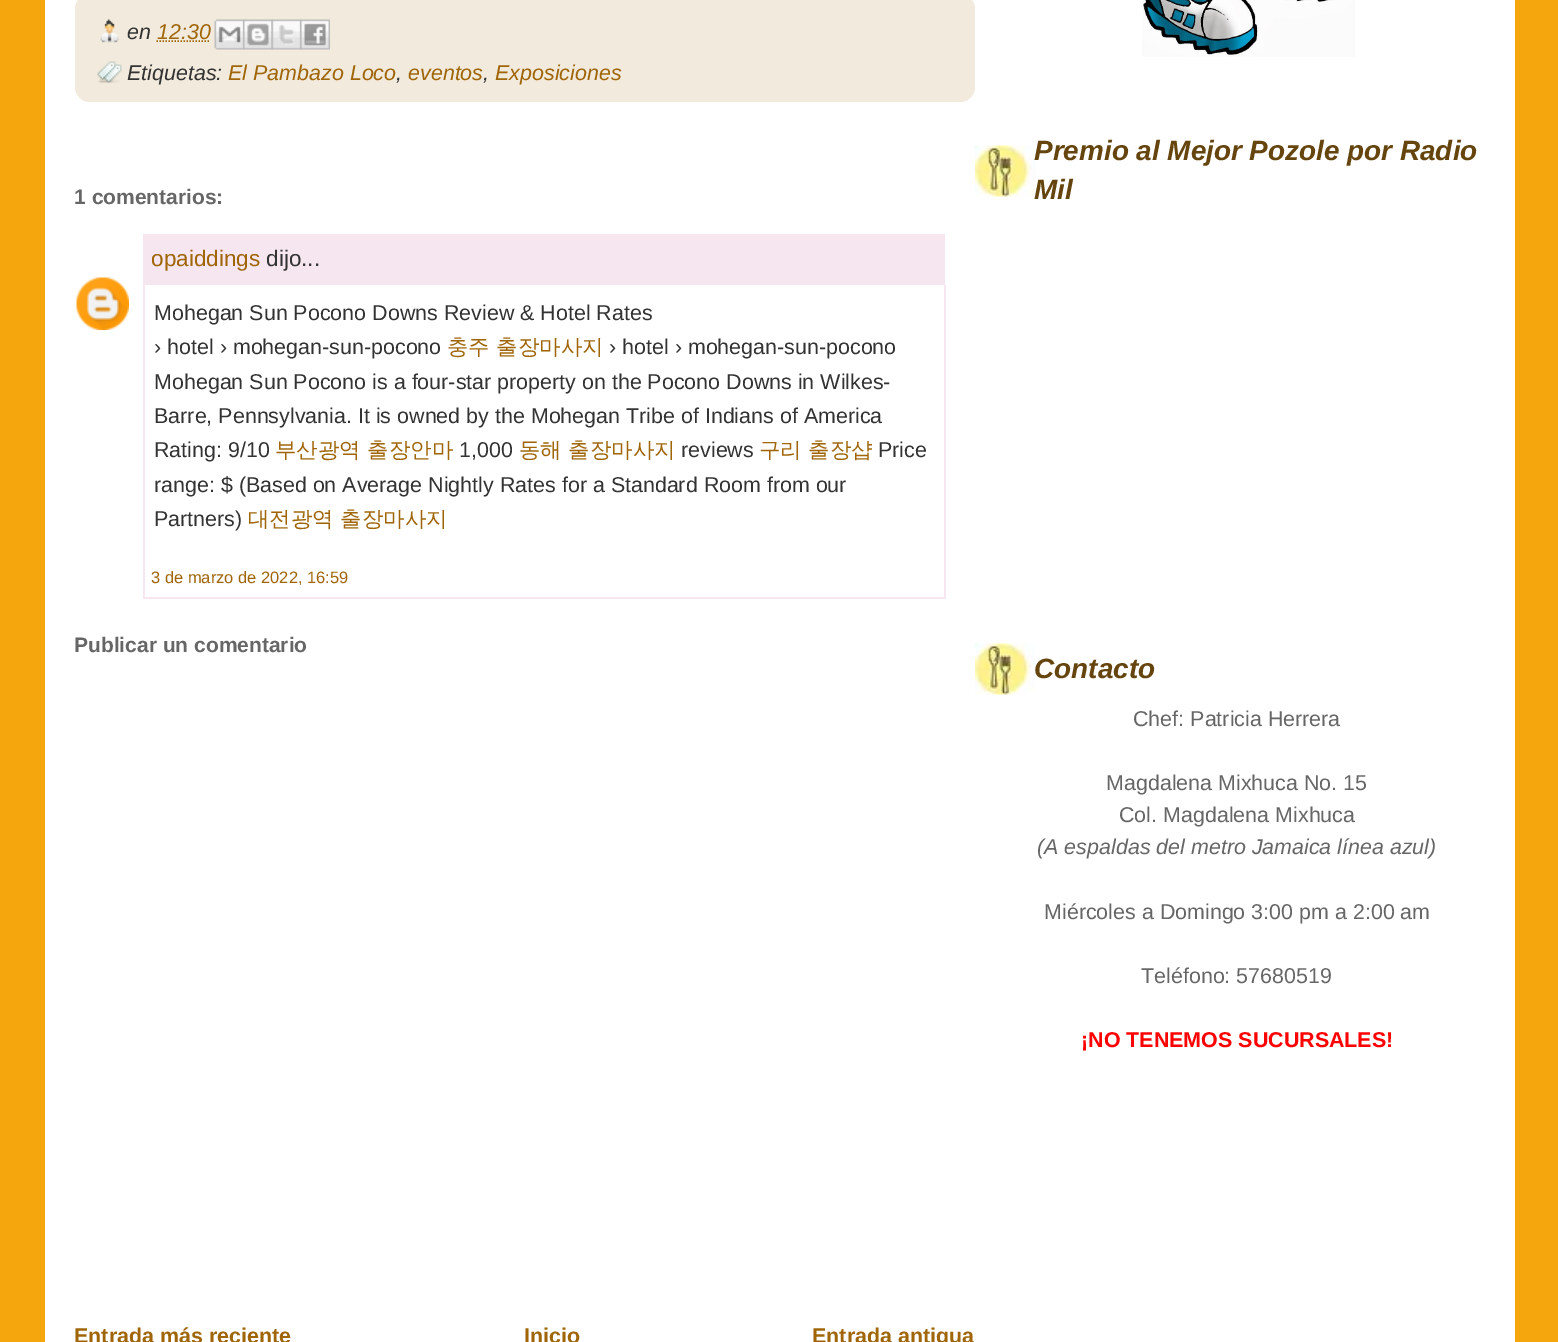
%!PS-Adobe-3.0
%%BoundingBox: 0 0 1558 1342
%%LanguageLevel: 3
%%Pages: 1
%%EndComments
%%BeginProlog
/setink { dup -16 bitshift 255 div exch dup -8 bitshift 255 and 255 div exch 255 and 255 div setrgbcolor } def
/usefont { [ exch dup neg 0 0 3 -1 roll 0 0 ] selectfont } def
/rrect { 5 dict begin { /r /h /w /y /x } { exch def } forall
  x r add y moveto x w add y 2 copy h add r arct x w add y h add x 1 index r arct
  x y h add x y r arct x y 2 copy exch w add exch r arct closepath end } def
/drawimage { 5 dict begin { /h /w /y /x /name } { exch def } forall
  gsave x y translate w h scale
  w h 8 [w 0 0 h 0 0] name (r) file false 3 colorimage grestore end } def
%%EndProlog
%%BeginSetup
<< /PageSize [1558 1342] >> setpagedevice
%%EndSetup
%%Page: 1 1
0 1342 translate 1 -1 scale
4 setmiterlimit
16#F5A60D setink
0 0 1558 1342 rectfill
16#FFFFFF setink
45 0 1470 1342 rectfill
16#F2EADC setink
75 -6 900 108 15 rrect fill
(img1.raw) 100 19 19 24 drawimage
/LiberationSans-Italic 21.45 usefont
16#333333 setink
127 39 moveto (en) show
16#9F6507 setink
157 39 moveto (12:30) show
1.5 setlinewidth
[1.5 1.5] 0 setdash
156.5 41 moveto 210 41 lineto stroke
(img2.raw) 214 19 31 31 drawimage
(img3.raw) 243 19 30 31 drawimage
(img4.raw) 271 19 31 31 drawimage
(img5.raw) 300 19 30 31 drawimage
(img6.raw) 97 61 25 22 drawimage
16#333333 setink
127 80 moveto (Etiquetas:) show
16#9F6507 setink
228 80 moveto (El Pambazo Loco) show
16#333333 setink
396 80 moveto (,) show
16#9F6507 setink
408 80 moveto (eventos) show
16#333333 setink
483 80 moveto (,) show
16#9F6507 setink
495 80 moveto (Exposiciones) show
/LiberationSans-Bold 21 usefont
16#666666 setink
74 204 moveto (1 comentarios:) show
16#F5E6EF setink
143 234 802 51 rectfill
/LiberationSans-Regular 22.5 usefont
16#9F6507 setink
151 266 moveto (opaiddings) show
16#333333 setink
266 266 moveto (dijo...) show
(img7.raw) 76 277 53 53 drawimage
16#F5E6EF setink
944 285 2 314 rectfill
143 285 2 278 rectfill
/LiberationSans-Regular 21.45 usefont
16#333333 setink
154 320 moveto (Mohegan Sun Pocono Downs Review & Hotel Rates) show
154 354 moveto (› hotel › mohegan-sun-pocono) show
/WenQuanYiZenHei-Medium 21.45 usefont
16#9F6507 setink
447 354 moveto (충주 출장마사지) show
/LiberationSans-Regular 21.45 usefont
16#333333 setink
[
    [(› hotel › mohegan-sun-pocono) 609 354]
    [(Mohegan Sun Pocono is a four-star property on the Pocono Downs in Wilkes-) 154 389]
    [(Barre, Pennsylvania. It is owned by the Mohegan Tribe of Indians of America) 154 423]
    [(Rating: 9/10) 154 457]
] { aload pop moveto show } forall
/WenQuanYiZenHei-Medium 21.45 usefont
16#9F6507 setink
275 457 moveto (부산광역 출장안마) show
/LiberationSans-Regular 21.45 usefont
16#333333 setink
459 457 moveto (1,000) show
/WenQuanYiZenHei-Medium 21.45 usefont
16#9F6507 setink
519 457 moveto (동해 출장마사지) show
/LiberationSans-Regular 21.45 usefont
16#333333 setink
681 457 moveto (reviews) show
/WenQuanYiZenHei-Medium 21.45 usefont
16#9F6507 setink
759 457 moveto (구리 출장샵) show
/LiberationSans-Regular 21.45 usefont
16#333333 setink
[
    [(Price) 878 457]
    [(range: $ \(Based on Average Nightly Rates for a Standard Room from our) 154 492]
    [(Partners\)) 154 526]
] { aload pop moveto show } forall
/WenQuanYiZenHei-Medium 21.45 usefont
16#9F6507 setink
248 526 moveto (대전광역 출장마사지) show
16#F5E6EF setink
143 597 802 2 rectfill
143 560 2 39 rectfill
/LiberationSans-Regular 16.5 usefont
16#9F6507 setink
151 583 moveto (3 de marzo de 2022, 16:59) show
/LiberationSans-Bold 21 usefont
16#666666 setink
74 652 moveto (Publicar un comentario) show
/LiberationSans-Bold 21.45 usefont
16#9F6507 setink
[
    [(Entrada más reciente) 74 1343]
    [(Inicio) 524 1343]
    [(Entrada antigua) 812 1343]
] { aload pop moveto show } forall
(img8.raw) 1142 0 213 57 drawimage
(img9.raw) 975 145 60 52 drawimage
/LiberationSans-BoldItalic 27.9 usefont
16#65440D setink
1034 160 moveto (Premio al Mejor Pozole por Radio) show
1034 199 moveto (Mil) show
(img9.raw) 975 643 60 52 drawimage
1034 678 moveto (Contacto) show
/LiberationSans-Regular 21.45 usefont
16#666666 setink
[
    [(Chef: Patricia Herrera) 1133 726]
    [(Magdalena Mixhuca No. 15) 1106 790]
    [(Col. Magdalena Mixhuca) 1119 822]
] { aload pop moveto show } forall
/LiberationSans-Italic 21.45 usefont
1037 854 moveto (\(A espaldas del metro Jamaica línea azul\)) show
/LiberationSans-Regular 21.45 usefont
1044 919 moveto (Miércoles a Domingo 3:00 pm a 2:00 am) show
1141 983 moveto (Teléfono: 57680519) show
/LiberationSans-Bold 21.45 usefont
16#FF0000 setink
1081 1047 moveto (¡NO TENEMOS SUCURSALES!) show
showpage
%%EOF
